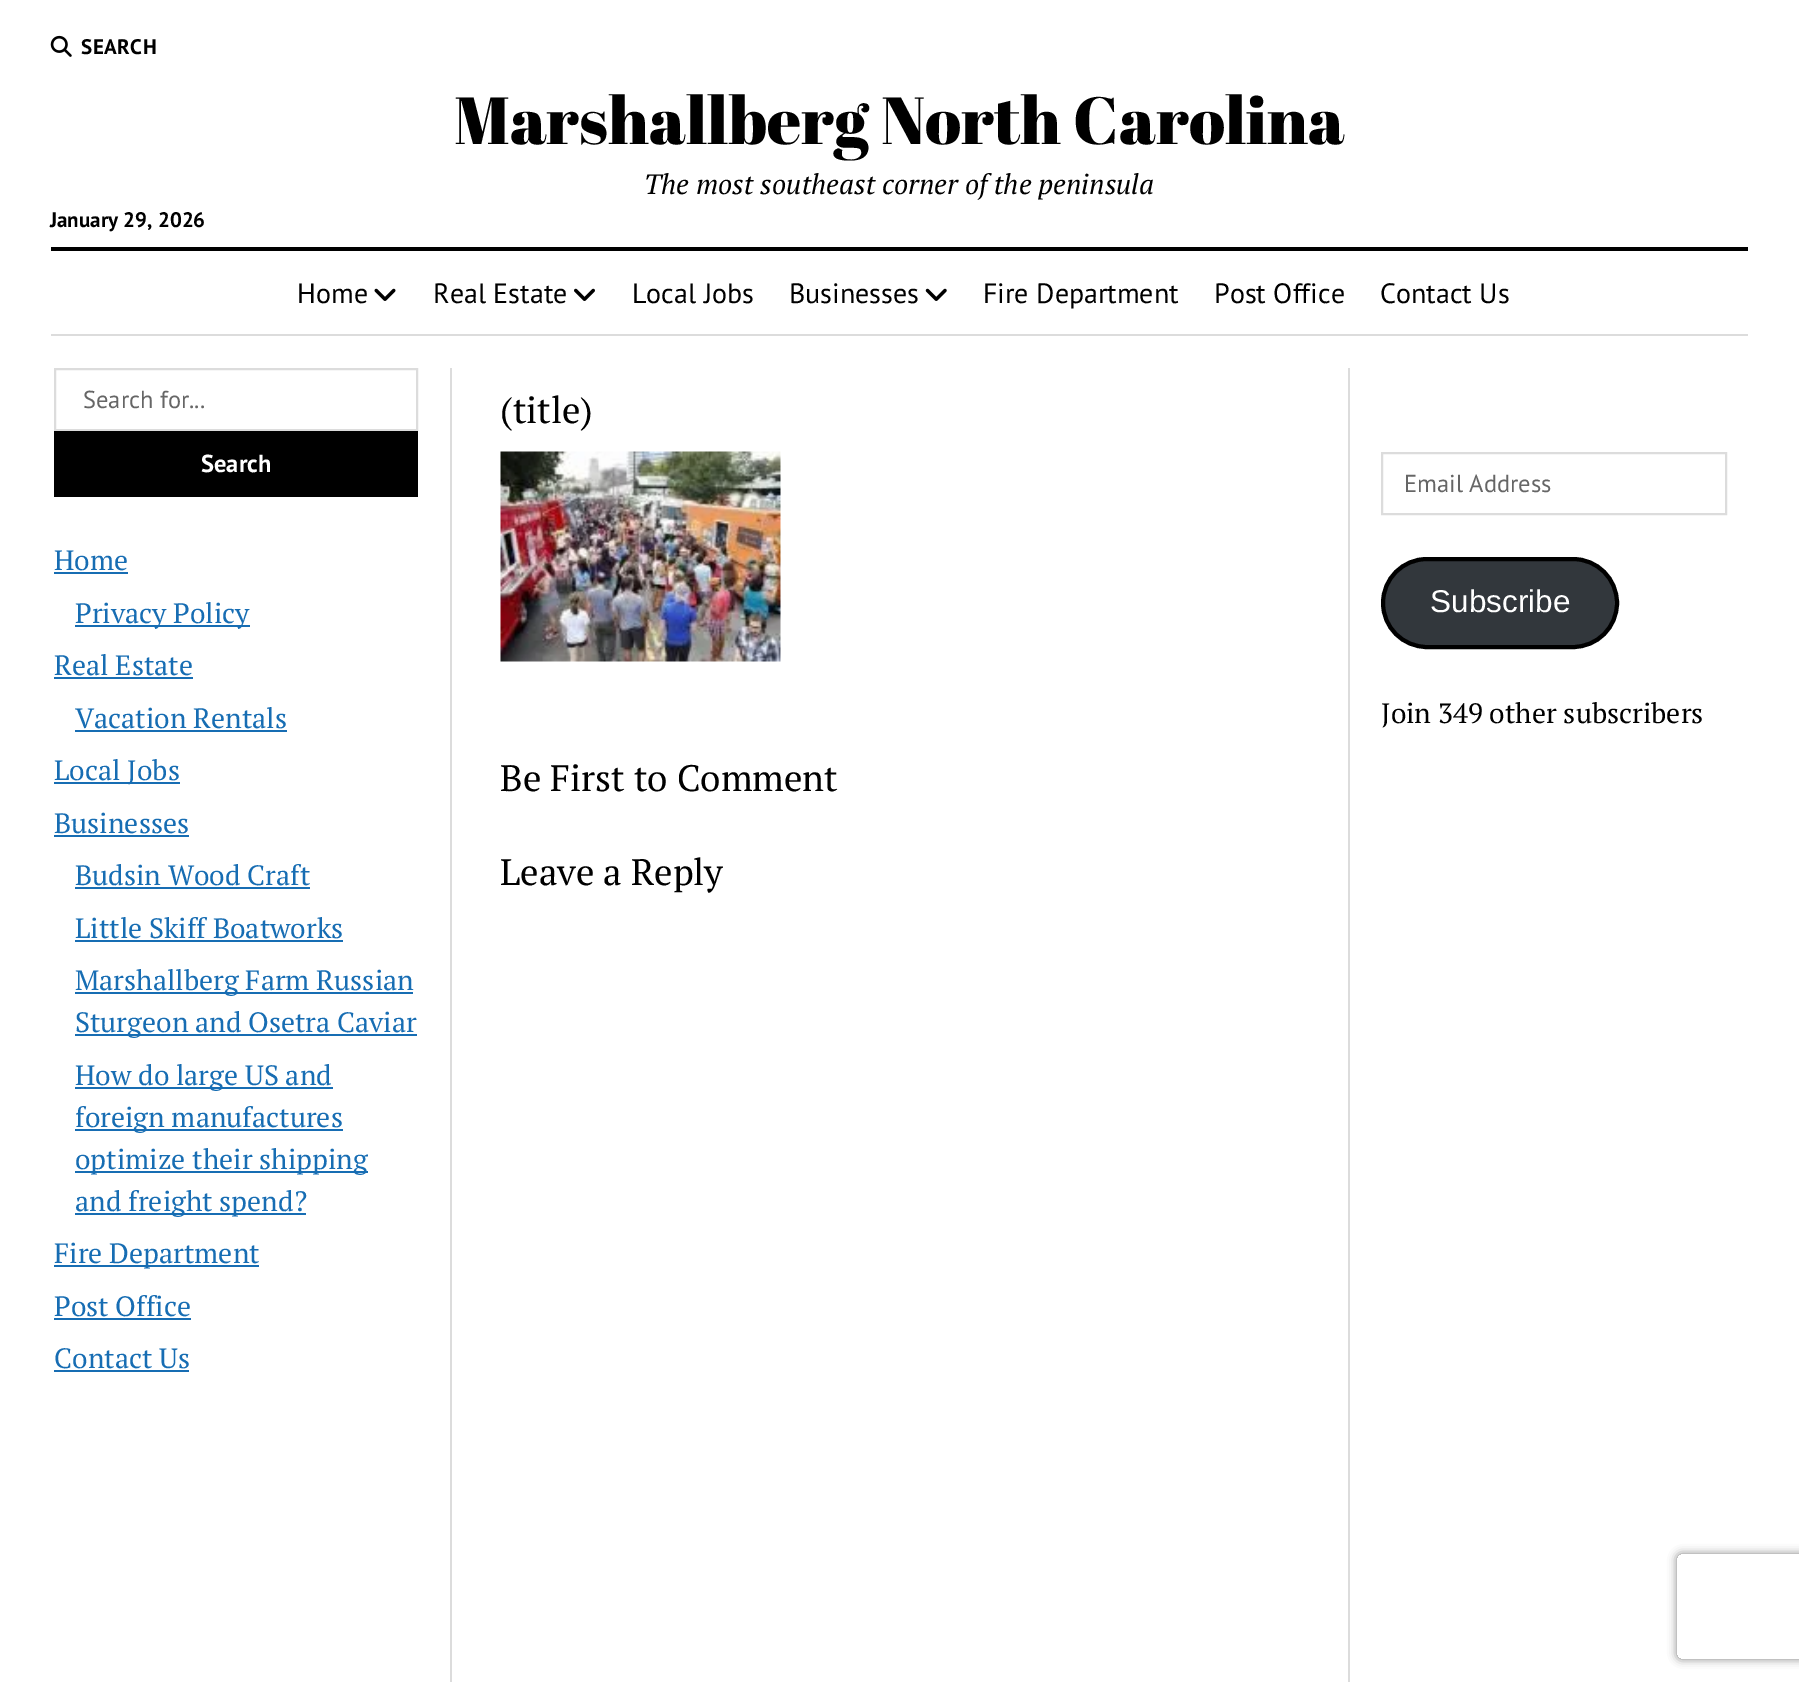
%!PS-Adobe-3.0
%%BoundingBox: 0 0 1799 1682
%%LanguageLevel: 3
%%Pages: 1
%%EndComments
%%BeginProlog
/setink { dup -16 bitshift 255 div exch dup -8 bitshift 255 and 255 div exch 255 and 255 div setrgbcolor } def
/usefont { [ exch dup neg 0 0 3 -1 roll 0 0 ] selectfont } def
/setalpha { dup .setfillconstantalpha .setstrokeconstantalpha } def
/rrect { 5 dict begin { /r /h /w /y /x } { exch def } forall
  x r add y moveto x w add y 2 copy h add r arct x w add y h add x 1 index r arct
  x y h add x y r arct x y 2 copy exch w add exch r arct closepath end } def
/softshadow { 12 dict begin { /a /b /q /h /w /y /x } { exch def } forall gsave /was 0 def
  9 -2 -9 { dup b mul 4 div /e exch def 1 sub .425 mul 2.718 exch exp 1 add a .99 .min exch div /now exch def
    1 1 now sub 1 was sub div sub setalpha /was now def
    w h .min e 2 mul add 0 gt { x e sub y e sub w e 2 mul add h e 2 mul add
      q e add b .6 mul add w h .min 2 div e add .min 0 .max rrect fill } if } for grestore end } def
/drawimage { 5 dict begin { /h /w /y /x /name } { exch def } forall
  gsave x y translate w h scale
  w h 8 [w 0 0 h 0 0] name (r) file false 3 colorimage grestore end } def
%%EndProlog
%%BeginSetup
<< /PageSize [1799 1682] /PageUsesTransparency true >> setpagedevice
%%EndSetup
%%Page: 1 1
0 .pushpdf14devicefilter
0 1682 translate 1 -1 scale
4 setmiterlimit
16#FFFFFF setink
0 0 1799 1682 rectfill
(img1.raw) 50 35 22 22 drawimage
/PTSans-Bold 21 usefont
16#000000 setink
81 54 moveto 0.5 0 (SEARCH) ashow
/AbrilFatface-Regular 66.5 usefont
454 144 moveto (Marshallberg North Carolina) show
/PTSerif-Italic 28 usefont
644 194 moveto (The most southeast corner of the peninsula) show
/PTSans-Bold 21 usefont
50 227 moveto (January 29, 2026) show
51 247 1697 4 rectfill
16#DCDCDC setink
51 334 1697 2 rectfill
/PTSans-Regular 28 usefont
16#000000 setink
297 303 moveto (Home) show
(img2.raw) 374 288 22 13 drawimage
433 303 moveto (Real Estate) show
(img3.raw) 574 288 21 13 drawimage
632 303 moveto (Local Jobs) show
789 303 moveto (Businesses) show
(img4.raw) 925 288 22 13 drawimage
[
    [(Fire Department) 983 303]
    [(Post Office) 1214 303]
    [(Contact Us) 1380 303]
] { aload pop moveto show } forall
16#DCDCDC setink
450 368 2 1314 rectfill
1348 368 2 1314 rectfill
2 setlinewidth
55 369 362 61 rectstroke
/PTSans-Regular 24.5 usefont
16#666666 setink
83 408 moveto (Search for...) show
16#000000 setink
54 431 364 66 rectfill
/PTSans-Bold 24.5 usefont
16#FFFFFF setink
201 472 moveto (Search) show
/PTSerif-Regular 28 usefont
16#176DB3 setink
54 570 moveto (Home) show
54 572 74 2 rectfill
75 625 175 2 rectfill
75 623 moveto (Privacy Policy) show
54 675 moveto (Real Estate) show
54 677 139 2 rectfill
75 728 moveto (Vacation Rentals) show
75 730 212 2 rectfill
54 782 126 2 rectfill
54 780 moveto (Local Jobs) show
54 833 moveto (Businesses) show
54 835 135 2 rectfill
75 885 moveto (Budsin Wood Craft) show
75 887 235 2 rectfill
75 938 moveto (Little Skiff Boatworks) show
75 940 268 2 rectfill
75 992 338 2 rectfill
75 990 moveto (Marshallberg Farm Russian) show
75 1034 342 2 rectfill
75 1032 moveto (Sturgeon and Osetra Caviar) show
75 1087 258 2 rectfill
75 1085 moveto (How do large US and) show
75 1129 268 2 rectfill
75 1127 moveto (foreign manufactures) show
75 1171 293 2 rectfill
75 1169 moveto (optimize their shipping) show
75 1213 231 2 rectfill
75 1211 moveto (and freight spend?) show
54 1265 205 2 rectfill
54 1263 moveto (Fire Department) show
54 1316 moveto (Post Office) show
54 1318 137 2 rectfill
54 1368 moveto (Contact Us) show
54 1370 135 2 rectfill
/PTSerif-Regular 36.75 usefont
16#000000 setink
500 423 moveto (\(title\)) show
(img5.raw) 500 451 281 211 drawimage
500 791 moveto (Be First to Comment) show
500 885 moveto (Leave a Reply) show
16#DCDCDC setink
1382 453 344 61 rectstroke
/PTSans-Regular 24.5 usefont
16#666666 setink
1404 492 moveto (Email Address) show
16#32373C setink
1383 559 234 88 44 rrect gsave fill grestore
16#000000 setink
4 setlinewidth
stroke
/LiberationSans-Regular 31.5 usefont
16#FFFFFF setink
1430 612 moveto (Subscribe) show
/PTSerif-Regular 28 usefont
16#000000 setink
1381 723 moveto (Join 349 other subscribers) show
gsave
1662 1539 moveto 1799 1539 lineto 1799 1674 lineto 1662 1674 lineto closepath 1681 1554 moveto 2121 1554 lineto 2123 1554 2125 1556 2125 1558 curveto 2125 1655 lineto 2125 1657 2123 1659 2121 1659 curveto 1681 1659 lineto 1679 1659 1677 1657 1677 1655 curveto 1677 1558 lineto 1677 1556 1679 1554 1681 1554 curveto closepath eoclip newpath
16#808080 setink
1677 1554 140 105 4 4.5 1 softshadow
grestore
.poppdf14devicefilter showpage
%%EOF
